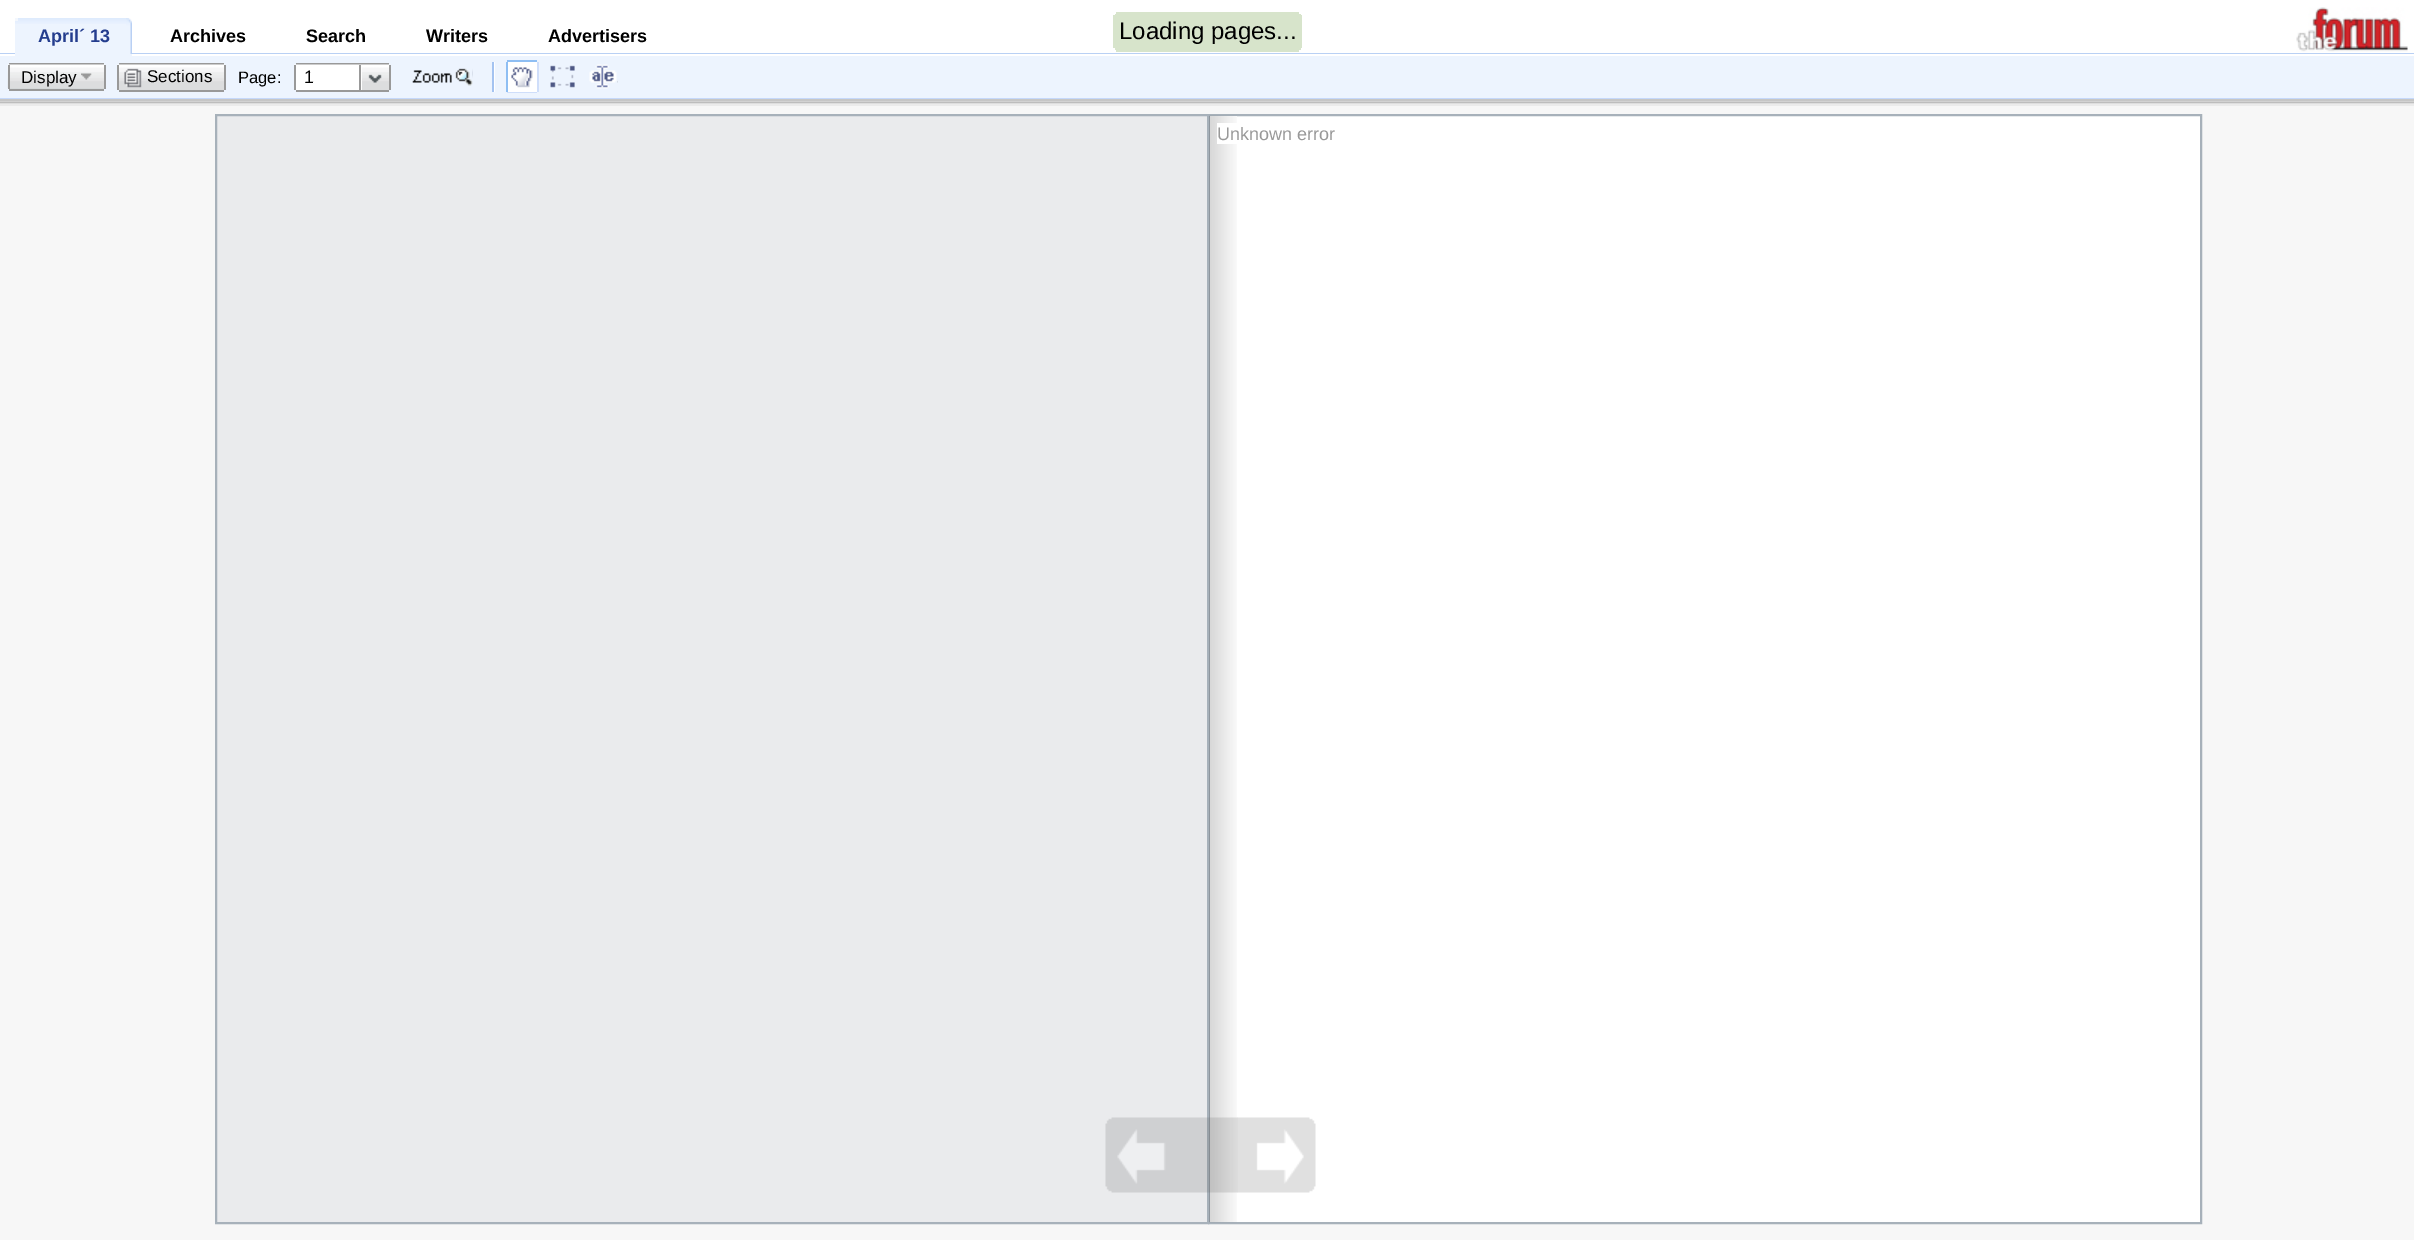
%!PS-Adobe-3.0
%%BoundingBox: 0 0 2414 1240
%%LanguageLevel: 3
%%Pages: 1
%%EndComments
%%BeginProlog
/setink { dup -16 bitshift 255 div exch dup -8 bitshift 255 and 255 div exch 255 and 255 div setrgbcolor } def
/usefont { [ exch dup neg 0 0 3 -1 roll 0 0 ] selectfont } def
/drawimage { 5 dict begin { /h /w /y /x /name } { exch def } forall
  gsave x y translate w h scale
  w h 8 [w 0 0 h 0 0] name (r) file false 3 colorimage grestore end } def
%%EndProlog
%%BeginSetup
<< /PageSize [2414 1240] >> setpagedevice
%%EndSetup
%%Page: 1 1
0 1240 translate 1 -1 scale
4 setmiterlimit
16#FFFFFF setink
0 0 2414 1240 rectfill
[
    [1116 12 183 2 16#D7E4CB]
    [1115 14 186 1 16#D7E4CB]
    [1113 15 189 33 16#D7E4CB]
] { aload pop setink rectfill } forall
/LiberationSans-Regular 24 usefont
16#000000 setink
1119 39 moveto (Loading pages...) show
16#D7E4CB setink
1115 48 186 2 rectfill
1116 50 183 2 rectfill
(img1.raw) 2296 7 112 45 drawimage
16#B9D0F4 setink
0 53 2414 1 rectfill
16#EDF4FE setink
15 24 117 32 rectfill
(img2.raw) 15 18 111 6 drawimage
16#F3F7FD setink
15 18 3 3 rectfill
(img3.raw) 126 18 6 36 drawimage
/LiberationSans-Bold 18 usefont
16#243D8E setink
38 42 moveto (April´ 13) show
16#000000 setink
[
    [(Archives) 170 42]
    [(Search) 306 42]
    [(Writers) 426 42]
    [(Advertisers) 548 42]
] { aload pop moveto show } forall
[
    [0 56 2414 42 16#EDF4FE]
    [9 63 95 2 16#999999]
    [9 89 95 2 16#999999]
    [10 88 94 1 16#D4D8D9]
] { aload pop setink rectfill } forall
(img4.raw) 7 64 98 24 drawimage
16#999999 setink
104 65 2 24 rectfill
8 65 2 24 rectfill
/LiberationSans-Regular 17 usefont
16#000000 setink
21 83 moveto (Display) show
(img5.raw) 81 73 11 7 drawimage
16#999999 setink
119 63 105 2 rectfill
119 90 105 2 rectfill
(img6.raw) 117 64 108 26 drawimage
224 65 2 25 rectfill
117 65 2 25 rectfill
(img7.raw) 124 68 18 20 drawimage
16#000000 setink
147 82 moveto (Sections) show
/LiberationSans-Regular 16.5 usefont
238 83 moveto (Page:) show
16#999999 setink
296 63 93 2 rectfill
296 90 93 2 rectfill
(img8.raw) 294 64 96 26 drawimage
[
    [389 65 2 25 16#999999]
    [294 65 2 25 16#999999]
    [296 67 63 23 16#FFFFFF]
    [359 65 2 25 16#999999]
] { aload pop setink rectfill } forall
/LiberationSans-Regular 18 usefont
16#000000 setink
304 83 moveto (1) show
(img9.raw) 368 74 14 9 drawimage
16#FFFFFF setink
361 65 1 25 rectfill
(img10.raw) 412 68 61 18 drawimage
[
    [494 62 1 30 16#FFFFFF]
    [492 62 2 30 16#A4C3F1]
    [508 62 29 30 16#FFFFFF]
    [507 60 30 2 16#8EBEF3]
    [507 92 30 1 16#CFDEFA]
    [537 62 2 30 16#CFDEFA]
    [506 62 2 30 16#8EBEF3]
] { aload pop setink rectfill } forall
(img11.raw) 511 67 22 21 drawimage
(img12.raw) 550 65 25 23 drawimage
(img13.raw) 589 64 29 25 drawimage
[
    [0 98 2414 1 16#C5D8FA]
    [0 106 2414 1134 16#F7F7F7]
    [0 103 2414 1 16#DEDEDE]
] { aload pop setink rectfill } forall
16#EAEBED setink
216 115 moveto 1208 115 lineto 1208 1223 lineto 216 1223 lineto closepath gsave fill grestore
16#A7B1BA setink
2 setlinewidth
stroke
16#FFFFFF setink
1209 115 moveto 2201 115 lineto 2201 1223 lineto 1209 1223 lineto closepath gsave fill grestore
16#A7B1BA setink
stroke
(img14.raw) 1209 115 28 1108 drawimage
16#FFFFFF setink
1217 123 20 21 rectfill
16#999999 setink
1217 140 moveto (Unknown error) show
[
    [0 99 2414 2 16#C6C6C6]
    [0 101 2414 1 16#D2D2D2]
    [0 102 2414 1 16#BDBDBD]
    [0 104 2414 2 16#EBEBEB]
] { aload pop setink rectfill } forall
(img15.raw) 1105 1117 211 76 drawimage
showpage
%%EOF
